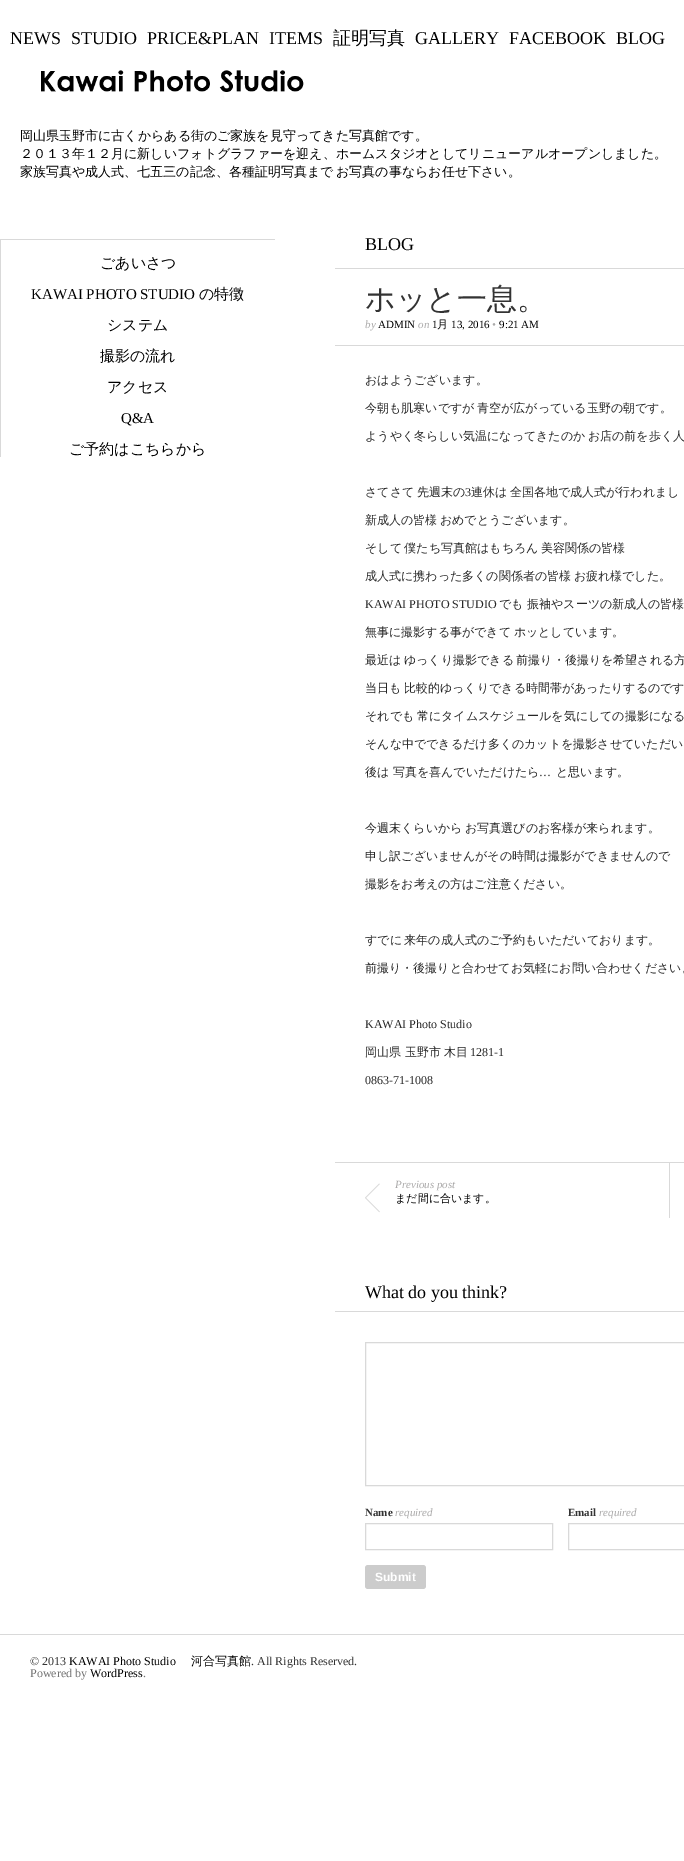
%!PS-Adobe-3.0
%%BoundingBox: 0 0 684 1861
%%LanguageLevel: 3
%%Pages: 1
%%EndComments
%%BeginProlog
/setink { dup -16 bitshift 255 div exch dup -8 bitshift 255 and 255 div exch 255 and 255 div setrgbcolor } def
/usefont { [ exch dup neg 0 0 3 -1 roll 0 0 ] selectfont } def
/rrect { 5 dict begin { /r /h /w /y /x } { exch def } forall
  x r add y moveto x w add y 2 copy h add r arct x w add y h add x 1 index r arct
  x y h add x y r arct x y 2 copy exch w add exch r arct closepath end } def
/drawimage { 5 dict begin { /h /w /y /x /name } { exch def } forall
  gsave x y translate w h scale
  w h 8 [w 0 0 h 0 0] name (r) file false 3 colorimage grestore end } def
%%EndProlog
%%BeginSetup
<< /PageSize [684 1861] >> setpagedevice
%%EndSetup
%%Page: 1 1
0 1861 translate 1 -1 scale
4 setmiterlimit
16#FFFFFF setink
0 0 684 1861 rectfill
/LiberationSerif-Regular 18 usefont
16#000000 setink
[
    [(NEWS) 10 44]
    [(STUDIO) 71 44]
    [(PRICE&PLAN) 147 44]
    [(ITEMS) 269 44]
] { aload pop moveto show } forall
/WenQuanYiZenHei-Medium 18 usefont
333 44 moveto (証明写真) show
/LiberationSerif-Regular 18 usefont
[
    [(GALLERY) 415 44]
    [(FACEBOOK) 509 44]
    [(BLOG) 616 44]
] { aload pop moveto show } forall
(img1.raw) 41 70 263 22 drawimage
/WenQuanYiZenHei-Medium 13 usefont
20 140 moveto (岡山県玉野市に古くからある街のご家族を見守ってきた写真館です。) show
20 158 moveto (２０１３年１２月に新しいフォトグラファーを迎え、ホームスタジオとしてリニューアルオープンしました。) show
20 176 moveto -1 0 32 (家族写真や成人式、七五三の記念、各種証明写真まで お写真の事ならお任せ下さい。) widthshow
16#D9D9D9 setink
0 239 275 1 rectfill
0 240 1 217 rectfill
/WenQuanYiZenHei-Medium 15 usefont
16#000000 setink
100 268 moveto (ごあいさつ) show
/LiberationSerif-Regular 15 usefont
31 299 moveto (KAWAI PHOTO STUDIO) show
/WenQuanYiZenHei-Medium 15 usefont
[
    [(の特徴) 199 299]
    [(システム) 107 330]
    [(撮影の流れ) 100 361]
    [(アクセス) 107 392]
] { aload pop moveto show } forall
/LiberationSerif-Regular 15 usefont
121 423 moveto (Q&A) show
/WenQuanYiZenHei-Medium 15 usefont
69 454 moveto (ご予約はこちらから) show
16#D9D9D9 setink
335 268 349 1 rectfill
/LiberationSerif-Regular 18 usefont
16#000000 setink
365 250 moveto (BLOG) show
16#D9D9D9 setink
335 1162 349 1 rectfill
335 345 349 1 rectfill
/WenQuanYiZenHei-Medium 30 usefont
16#333333 setink
365 309 moveto (ホッと一息。) show
/LiberationSerif-Italic 11 usefont
16#AAA9A9 setink
365 328 moveto (by) show
/LiberationSerif-Regular 11 usefont
16#000000 setink
378 328 moveto (ADMIN) show
/LiberationSerif-Italic 11 usefont
16#AAA9A9 setink
418 328 moveto (on) show
/LiberationSerif-Regular 11 usefont
16#000000 setink
432 328 moveto (1) show
/WenQuanYiZenHei-Medium 11 usefont
437 328 moveto (月) show
/LiberationSerif-Regular 11 usefont
451 328 moveto (13, 2016) show
/LiberationSerif-Italic 11 usefont
16#AAA9A9 setink
492 328 moveto (•) show
/LiberationSerif-Regular 11 usefont
16#000000 setink
499 328 moveto (9:21 AM) show
/WenQuanYiZenHei-Medium 12 usefont
16#262626 setink
365 384 moveto (おはようございます。) show
365 412 moveto -1 0 32 (今朝も肌寒いですが 青空が広がっている玉野の朝です。) widthshow
365 440 moveto -1 0 32 (ようやく冬らしい気温になってきたのか お店の前を歩く人) widthshow
365 496 moveto -1 0 32 (さてさて 先週末の) widthshow
/LiberationSerif-Regular 12 usefont
465 496 moveto (3) show
/WenQuanYiZenHei-Medium 12 usefont
471 496 moveto -1 0 32 (連休は 全国各地で成人式が行われまし) widthshow
365 524 moveto -1 0 32 (新成人の皆様 おめでとうございます。) widthshow
365 552 moveto -1 0 32 (そして 僕たち写真館はもちろん 美容関係の皆様) widthshow
365 580 moveto -1 0 32 (成人式に携わった多くの関係者の皆様 お疲れ様でした。) widthshow
/LiberationSerif-Regular 12 usefont
365 608 moveto (KAWAI PHOTO STUDIO) show
/WenQuanYiZenHei-Medium 12 usefont
499 608 moveto (でも) show
527 608 moveto (振袖やスーツの新成人の皆様) show
365 636 moveto -1 0 32 (無事に撮影する事ができて ホッとしています。) widthshow
365 664 moveto -1 0 32 (最近は ゆっくり撮影できる 前撮り・後撮りを希望される方) widthshow
365 692 moveto -1 0 32 (当日も 比較的ゆっくりできる時間帯があったりするのです) widthshow
365 720 moveto -1 0 32 (それでも 常にタイムスケジュールを気にしての撮影になる) widthshow
365 748 moveto (そんな中でできるだけ多くのカットを撮影させていただい) show
365 776 moveto (後は 写真を喜んでいただけたら) show
/LiberationSerif-Regular 12 usefont
539 776 moveto (…) show
/WenQuanYiZenHei-Medium 12 usefont
556 776 moveto (と思います。) show
365 832 moveto -1 0 32 (今週末くらいから お写真選びのお客様が来られます。) widthshow
365 860 moveto (申し訳ございませんがその時間は撮影ができませんので) show
365 888 moveto (撮影をお考えの方はご注意ください。) show
365 944 moveto -1 0 32 (すでに 来年の成人式のご予約もいただいております。) widthshow
365 972 moveto (前撮り・後撮りと合わせてお気軽にお問い合わせください。) show
/LiberationSerif-Regular 12 usefont
365 1028 moveto (KAWAI Photo Studio) show
/WenQuanYiZenHei-Medium 12 usefont
365 1056 moveto (岡山県 玉野市 木目) show
/LiberationSerif-Regular 12 usefont
470 1056 moveto (1281-1) show
365 1084 moveto (0863-71-1008) show
(img2.raw) 365 1183 15 30 drawimage
/LiberationSerif-Italic 11 usefont
16#AAA9A9 setink
395 1188 moveto (Previous post) show
/WenQuanYiZenHei-Medium 11 usefont
16#000000 setink
395 1202 moveto (まだ間に合います。) show
16#D9D9D9 setink
669 1163 1 55 rectfill
335 1311 349 1 rectfill
/LiberationSerif-Regular 18 usefont
16#000000 setink
365 1298 moveto (What do you think?) show
16#D9D9D9 setink
365.5 1342.5 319 143 rectstroke
/LiberationSerif-Bold 11 usefont
16#333333 setink
365 1516 moveto (Name) show
/LiberationSerif-Italic 11 usefont
16#AAA9A9 setink
395 1516 moveto (required) show
16#D9D9D9 setink
365.5 1523.5 187 26 rectstroke
/LiberationSerif-Bold 11 usefont
16#333333 setink
568 1516 moveto (Email) show
/LiberationSerif-Italic 11 usefont
16#AAA9A9 setink
599 1516 moveto (required) show
16#D9D9D9 setink
568.5 1523.5 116 26 rectstroke
16#CCCCCC setink
365 1565 61 24 3 rrect fill
/LiberationSans-Bold 12 usefont
16#FFFFFF setink
375 1581 moveto (Submit) show
16#D9D9D9 setink
0 1634 684 1 rectfill
/LiberationSerif-Regular 12 usefont
16#333333 setink
30 1665 moveto (© 2013) show
16#000000 setink
69 1665 moveto (KAWAI Photo Studio) show
/WenQuanYiZenHei-Medium 12 usefont
191 1665 moveto (河合写真館) show
/LiberationSerif-Regular 12 usefont
16#333333 setink
251 1665 moveto (. All Rights Reserved.) show
16#737373 setink
30 1677 moveto (Powered by) show
16#000000 setink
90 1677 moveto (WordPress) show
16#737373 setink
143 1677 moveto (.) show
showpage
%%EOF
